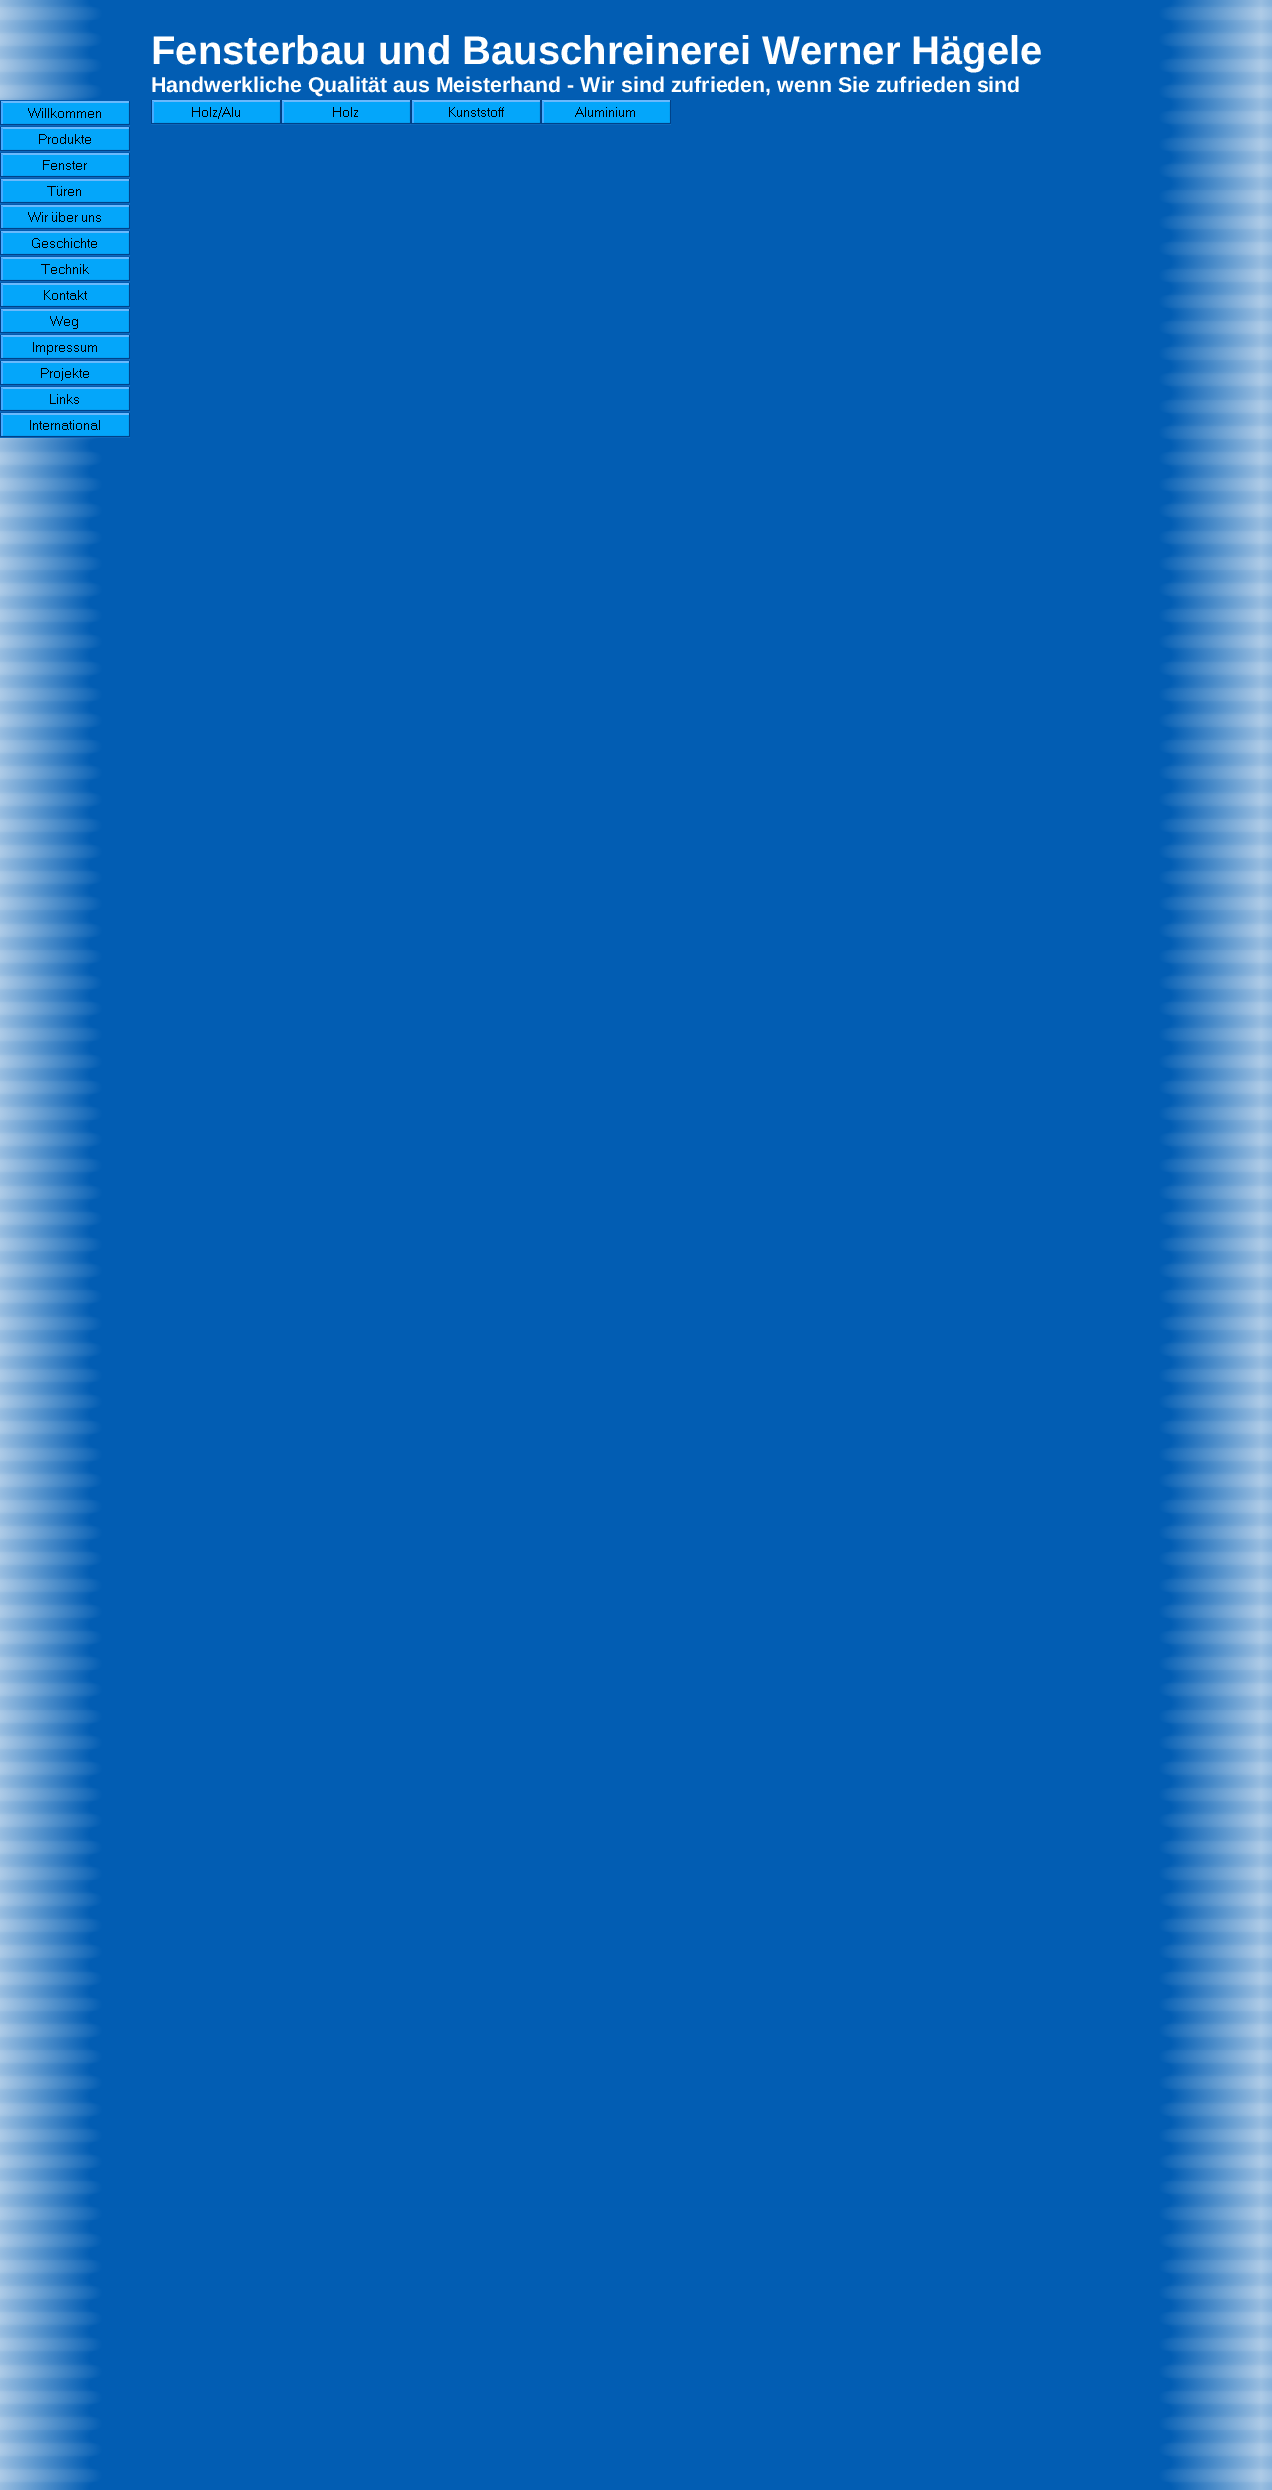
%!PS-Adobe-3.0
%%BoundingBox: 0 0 1272 2490
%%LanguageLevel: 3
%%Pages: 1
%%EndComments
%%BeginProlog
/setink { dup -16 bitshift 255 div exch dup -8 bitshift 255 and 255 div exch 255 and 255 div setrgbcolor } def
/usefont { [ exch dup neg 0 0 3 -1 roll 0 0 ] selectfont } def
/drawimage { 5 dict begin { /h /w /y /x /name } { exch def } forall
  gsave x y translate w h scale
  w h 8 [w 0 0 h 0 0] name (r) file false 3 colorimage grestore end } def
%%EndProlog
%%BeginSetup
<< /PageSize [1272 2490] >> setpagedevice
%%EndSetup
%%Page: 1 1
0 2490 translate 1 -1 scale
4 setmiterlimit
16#FFFFFF setink
0 0 1272 2490 rectfill
(img1.raw) 0 0 1272 2490 drawimage
/LiberationSans-Bold 40 usefont
151 64 moveto (Fensterbau und Bauschreinerei Werner Hägele) show
/LiberationSans-Bold 21.35 usefont
151 92 moveto (Handwerkliche Qualität aus Meisterhand - Wir sind zufrieden, wenn Sie zufrieden sind) show
(img2.raw) 0 100 130 26 drawimage
(img3.raw) 0 126 130 26 drawimage
(img4.raw) 0 152 130 26 drawimage
(img5.raw) 0 178 130 26 drawimage
(img6.raw) 0 204 130 26 drawimage
(img7.raw) 0 230 130 26 drawimage
(img8.raw) 0 256 130 26 drawimage
(img9.raw) 0 282 130 26 drawimage
(img10.raw) 0 308 130 26 drawimage
(img11.raw) 0 334 130 26 drawimage
(img12.raw) 0 360 130 26 drawimage
(img13.raw) 0 386 130 26 drawimage
(img14.raw) 0 412 130 26 drawimage
(img15.raw) 151 99 130 26 drawimage
(img16.raw) 281 99 130 26 drawimage
(img17.raw) 411 99 130 26 drawimage
(img18.raw) 541 99 130 26 drawimage
showpage
%%EOF
